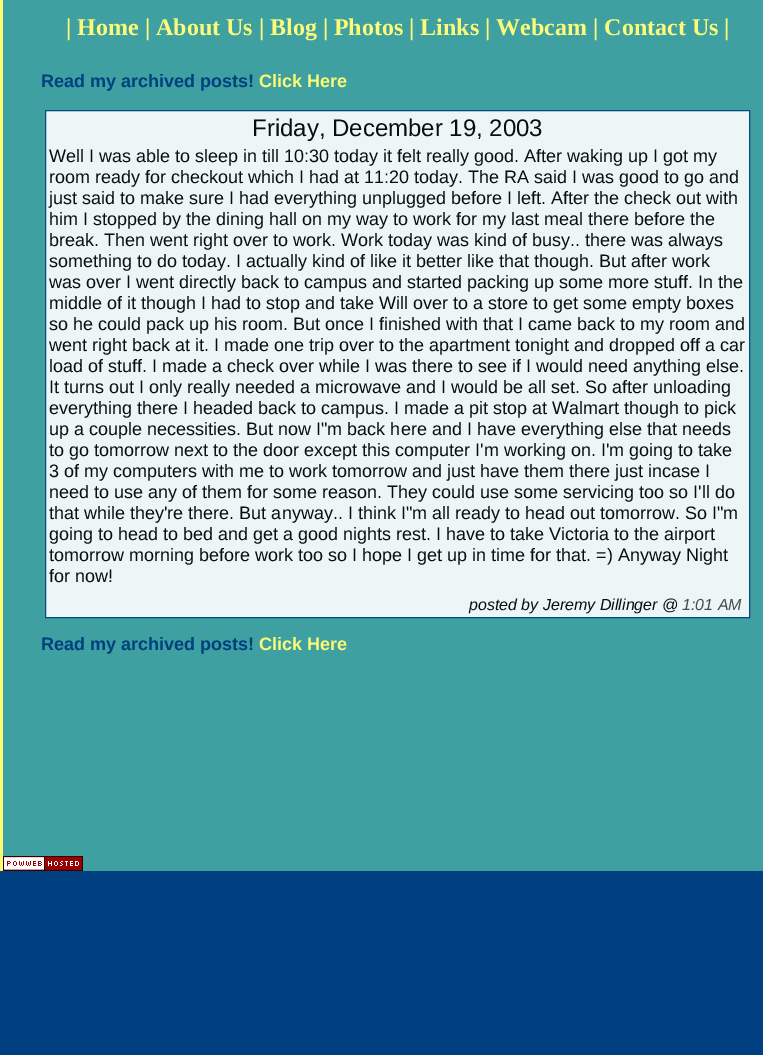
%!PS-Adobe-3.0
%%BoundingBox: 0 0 763 1055
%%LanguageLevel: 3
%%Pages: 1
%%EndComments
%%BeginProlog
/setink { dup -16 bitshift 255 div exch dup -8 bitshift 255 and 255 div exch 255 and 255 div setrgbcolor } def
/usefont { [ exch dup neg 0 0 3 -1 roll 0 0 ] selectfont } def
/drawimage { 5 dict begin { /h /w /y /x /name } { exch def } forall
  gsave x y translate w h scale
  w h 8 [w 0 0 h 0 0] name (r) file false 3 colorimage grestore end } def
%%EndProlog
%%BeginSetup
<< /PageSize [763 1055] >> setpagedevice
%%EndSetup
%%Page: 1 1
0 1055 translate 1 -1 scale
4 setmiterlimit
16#004080 setink
0 0 763 1055 rectfill
16#FCFC78 setink
0 0 3 871 rectfill
16#3EA0A1 setink
3 0 760 871 rectfill
/LiberationSerif-Bold 24 usefont
16#FCFC78 setink
66 35 moveto (| Home | About Us | Blog | Photos | Links | Webcam | Contact Us |) show
/LiberationSans-Bold 18 usefont
16#004080 setink
41 87 moveto (Read my archived posts!) show
16#FCFC78 setink
259 87 moveto (Click Here) show
16#ECF6F6 setink
45.5 110.5 moveto 749.5 110.5 lineto 749.5 617.5 lineto 45.5 617.5 lineto closepath gsave fill grestore
16#064A83 setink
stroke
/LiberationSans-Regular 24 usefont
16#061010 setink
252 136 moveto (Friday, December 19, 2003) show
/LiberationSans-Regular 18 usefont
[
    [(Well I was able to sleep in till 10:30 today it felt really good. After waking up I got my) 49 162]
    [(room ready for checkout which I had at 11:20 today. The RA said I was good to go and) 49 183]
    [(just said to make sure I had everything unplugged before I left. After the check out with) 49 204]
    [(him I stopped by the dining hall on my way to work for my last meal there before the) 49 225]
    [(break. Then went right over to work. Work today was kind of busy.. there was always) 49 246]
    [(something to do today. I actually kind of like it better like that though. But after work) 49 267]
    [(was over I went directly back to campus and started packing up some more stuff. In the) 49 288]
    [(middle of it though I had to stop and take Will over to a store to get some empty boxes) 49 309]
    [(so he could pack up his room. But once I finished with that I came back to my room and) 49 330]
    [(went right back at it. I made one trip over to the apartment tonight and dropped off a car) 49 351]
    [(load of stuff. I made a check over while I was there to see if I would need anything else.) 49 372]
    [(It turns out I only really needed a microwave and I would be all set. So after unloading) 49 393]
    [(everything there I headed back to campus. I made a pit stop at Walmart though to pick) 49 414]
    [(up a couple necessities. But now I"m back here and I have everything else that needs) 49 435]
    [(to go tomorrow next to the door except this computer I'm working on. I'm going to take) 49 456]
    [(3 of my computers with me to work tomorrow and just have them there just incase I) 49 477]
    [(need to use any of them for some reason. They could use some servicing too so I'll do) 49 498]
    [(that while they're there. But anyway.. I think I"m all ready to head out tomorrow. So I"m) 49 519]
    [(going to head to bed and get a good nights rest. I have to take Victoria to the airport) 49 540]
    [(tomorrow morning before work too so I hope I get up in time for that. =\) Anyway Night) 49 561]
    [(for now!) 49 582]
] { aload pop moveto show } forall
/LiberationSans-Italic 16 usefont
469 610 moveto (posted by Jeremy Dillinger @) show
16#434D4D setink
682 610 moveto (1:01 AM) show
/LiberationSans-Bold 18 usefont
16#004080 setink
41 650 moveto (Read my archived posts!) show
16#FCFC78 setink
259 650 moveto (Click Here) show
(img1.raw) 3 856 80 15 drawimage
showpage
%%EOF
